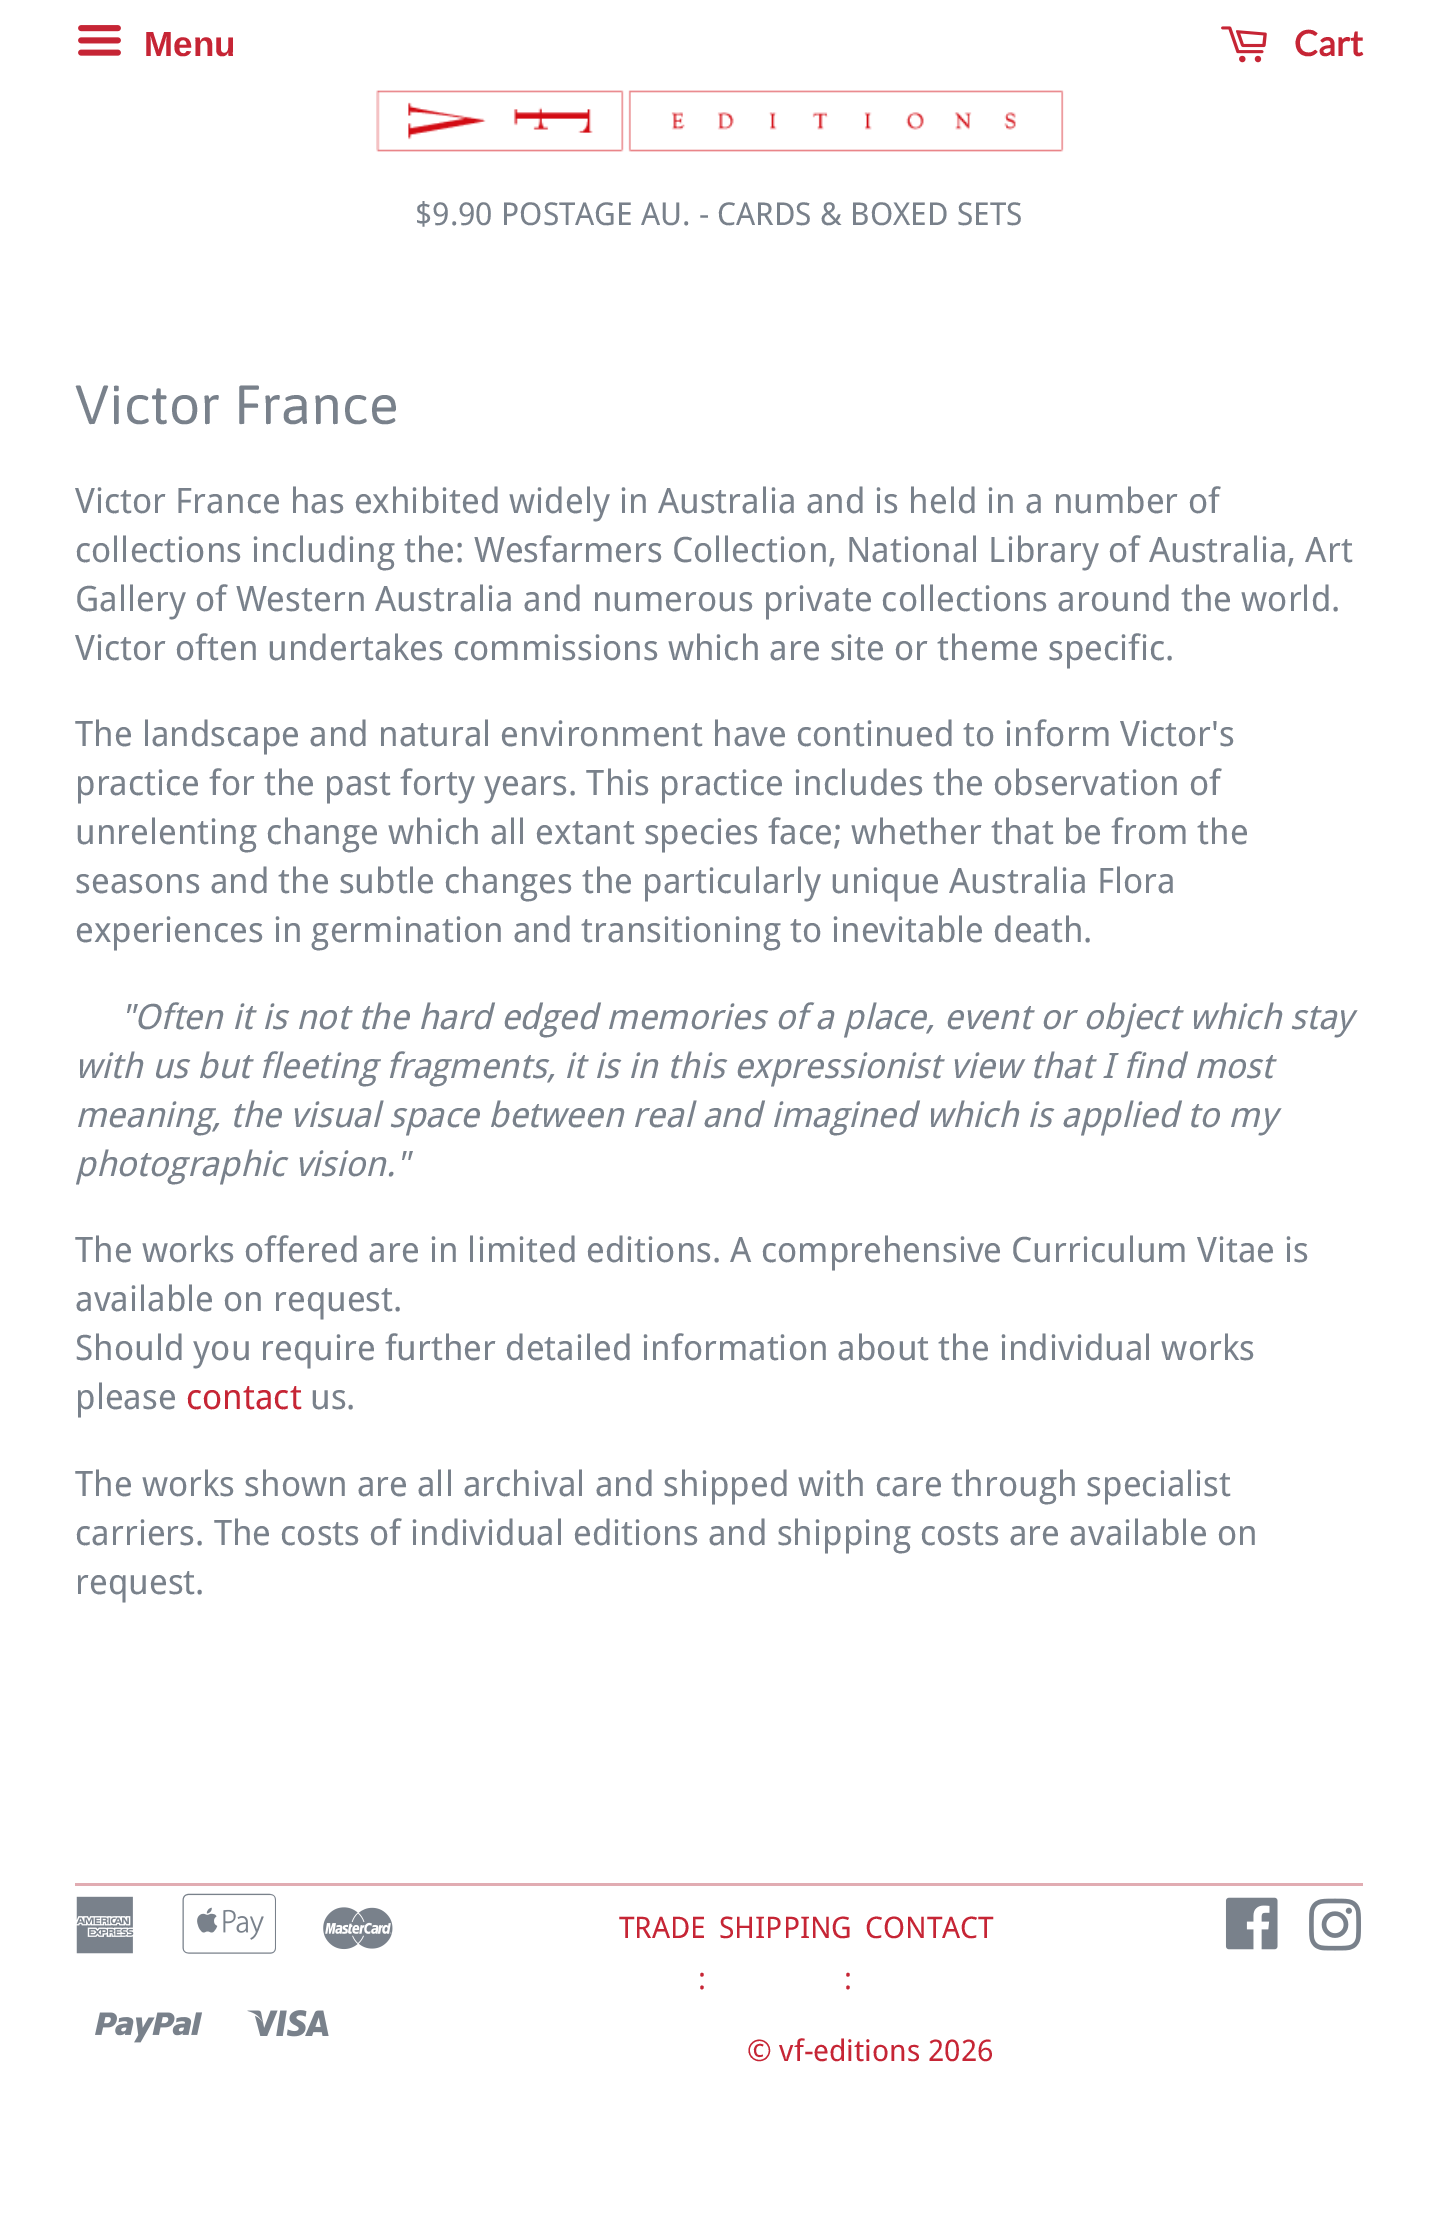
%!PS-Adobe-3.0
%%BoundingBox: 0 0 1436 2230
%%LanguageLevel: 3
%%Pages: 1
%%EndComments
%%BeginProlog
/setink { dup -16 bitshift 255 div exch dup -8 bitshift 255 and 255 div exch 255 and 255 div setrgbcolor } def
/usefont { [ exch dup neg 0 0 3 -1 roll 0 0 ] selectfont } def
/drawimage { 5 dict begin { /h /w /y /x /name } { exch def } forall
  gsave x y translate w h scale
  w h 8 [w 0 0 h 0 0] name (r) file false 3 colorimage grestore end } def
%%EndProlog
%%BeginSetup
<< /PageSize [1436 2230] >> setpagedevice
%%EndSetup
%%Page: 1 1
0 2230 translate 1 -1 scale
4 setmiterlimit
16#FFFFFF setink
0 0 1436 2230 rectfill
(img1.raw) 78 25 43 31 drawimage
/LiberationSans-Bold 35 usefont
16#C62535 setink
144 56 moveto (Menu) show
(img2.raw) 1221 26 46 37 drawimage
/Lato-Bold 35 usefont
1294 56 moveto (Cart) show
(img3.raw) 376 90 688 62 drawimage
/DroidSans-Regular 31.5 usefont
16#79818B setink
415 225 moveto ($9.90 POSTAGE AU. - CARDS & BOXED SETS) show
/Asap-Regular 55 usefont
75 424 moveto (Victor France) show
/DroidSans-Regular 35 usefont
[
    [(Victor France has exhibited widely in Australia and is held in a number of) 75 513]
    [(collections including the: Wesfarmers Collection, National Library of Australia, Art) 75 562]
    [(Gallery of Western Australia and numerous private collections around the world.) 75 611]
    [(Victor often undertakes commissions which are site or theme specific.) 75 660]
    [(The landscape and natural environment have continued to inform Victor's) 75 746]
    [(practice for the past forty years. This practice includes the observation of) 75 795]
    [(unrelenting change which all extant species face; whether that be from the) 75 844]
    [(seasons and the subtle changes the particularly unique Australia Flora) 75 893]
    [(experiences in germination and transitioning to inevitable death.) 75 942]
] { aload pop moveto show } forall
/DroidSans-Italic 35 usefont
[
    [("Often it is not the hard edged memories of a place, event or object which stay) 120 1029]
    [(with us but fleeting fragments, it is in this expressionist view that I find most) 75 1078]
    [(meaning, the visual space between real and imagined which is applied to my) 75 1127]
    [(photographic vision.") 75 1176]
] { aload pop moveto show } forall
/DroidSans-Regular 35 usefont
[
    [(The works offered are in limited editions. A comprehensive Curriculum Vitae is) 75 1262]
    [(available on request.) 75 1311]
    [(Should you require further detailed information about the individual works) 75 1360]
    [(please) 75 1409]
] { aload pop moveto show } forall
16#C62535 setink
186 1409 moveto (contact) show
16#79818B setink
[
    [(us.) 310 1409]
    [(The works shown are all archival and shipped with care through specialist) 75 1496]
    [(carriers. The costs of individual editions and shipping costs are available on) 75 1545]
    [(request.) 75 1594]
] { aload pop moveto show } forall
16#E1ACB2 setink
75 1883 1288 3 rectfill
(img4.raw) 76 1896 58 58 drawimage
(img5.raw) 182 1893 94 61 drawimage
(img6.raw) 323 1907 70 43 drawimage
(img7.raw) 95 2012 108 31 drawimage
(img8.raw) 247 2010 82 27 drawimage
/DroidSans-Regular 29.75 usefont
16#C62535 setink
[
    [(TRADE) 619 1938]
    [(:) 698 1989]
    [(SHIPPING) 719 1938]
    [(:) 844 1989]
    [(CONTACT) 865 1938]
    [(© vf-editions 2026) 747 2061]
] { aload pop moveto show } forall
(img9.raw) 1225 1897 53 53 drawimage
(img10.raw) 1309 1898 52 53 drawimage
showpage
%%EOF
